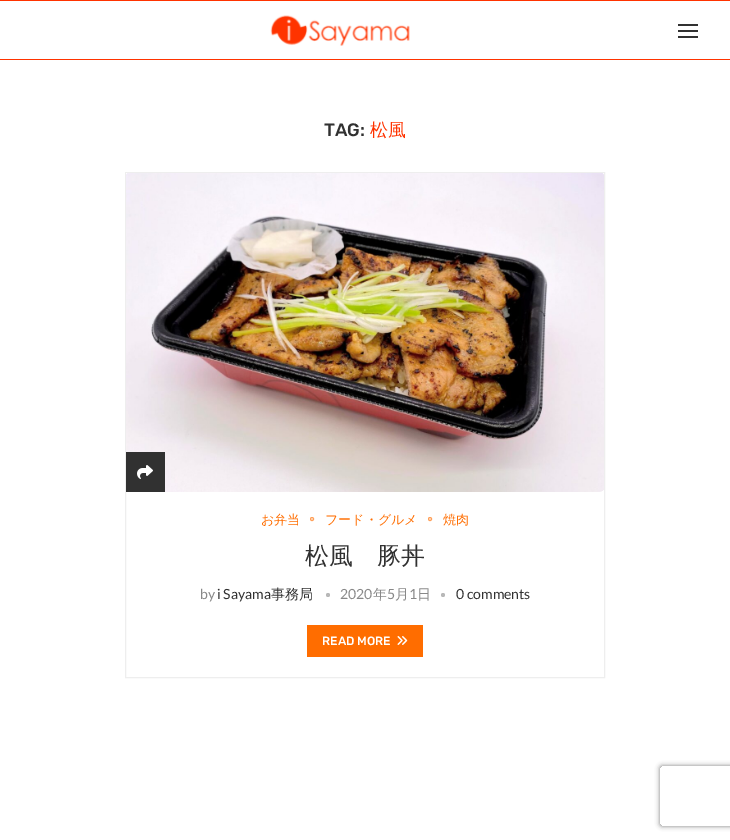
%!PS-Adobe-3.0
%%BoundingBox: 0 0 730 840
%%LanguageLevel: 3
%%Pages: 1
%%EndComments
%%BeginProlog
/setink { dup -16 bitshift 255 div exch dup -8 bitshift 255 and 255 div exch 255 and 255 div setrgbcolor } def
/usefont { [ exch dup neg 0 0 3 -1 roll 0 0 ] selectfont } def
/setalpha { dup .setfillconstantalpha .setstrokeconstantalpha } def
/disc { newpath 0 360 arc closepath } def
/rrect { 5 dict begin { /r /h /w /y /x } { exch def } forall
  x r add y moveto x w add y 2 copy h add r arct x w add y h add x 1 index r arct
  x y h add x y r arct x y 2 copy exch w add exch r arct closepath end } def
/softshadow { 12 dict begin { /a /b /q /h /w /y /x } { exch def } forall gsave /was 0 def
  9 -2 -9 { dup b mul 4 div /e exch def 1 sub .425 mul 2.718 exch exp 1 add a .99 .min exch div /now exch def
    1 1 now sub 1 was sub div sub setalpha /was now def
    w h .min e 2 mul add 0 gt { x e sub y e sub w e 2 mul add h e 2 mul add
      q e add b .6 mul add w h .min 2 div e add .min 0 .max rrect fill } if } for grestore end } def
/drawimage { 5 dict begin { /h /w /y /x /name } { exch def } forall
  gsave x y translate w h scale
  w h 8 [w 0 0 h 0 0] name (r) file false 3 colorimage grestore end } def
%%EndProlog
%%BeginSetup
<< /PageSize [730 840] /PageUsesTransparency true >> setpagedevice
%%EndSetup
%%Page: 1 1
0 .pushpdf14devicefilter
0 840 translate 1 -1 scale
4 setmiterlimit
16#FFFFFF setink
0 0 730 840 rectfill
16#FF3300 setink
0 0 730 1 rectfill
0 59 730 1 rectfill
(img1.raw) 270 15 140 31 drawimage
[
    [678 24 20 2 16#313131]
    [678 36 20 2 16#313131]
    [678 30 20 2 16#313131]
] { aload pop setink rectfill } forall
/Rubik-Medium 18 usefont
324 136 moveto (TAG:) show
/WenQuanYiZenHei-Medium 18 usefont
16#FF3300 setink
370 136 moveto (松風) show
16#EEEEEE setink
125.5 172.5 479 505 rectstroke
(img2.raw) 126 173 478 319 drawimage
16#313131 setink
126 452 39 40 rectfill
(img3.raw) 137 465 16 14 drawimage
/WenQuanYiZenHei-Medium 13 usefont
16#FF6D00 setink
261 524 moveto (お弁当) show
16#FFA059 setink
312 519 1.5 disc stroke
16#FF6D00 setink
325 524 moveto (フード・グルメ) show
16#FFA059 setink
430 519 1.5 disc stroke
16#FF6D00 setink
443 524 moveto (焼肉) show
/WenQuanYiZenHei-Medium 24 usefont
16#313131 setink
305 564 moveto (松風　豚丼) show
/Lato-Regular 14 usefont
16#888888 setink
200 599 moveto (by) show
16#313131 setink
217 599 moveto (i Sayama) show
/WenQuanYiZenHei-Medium 14 usefont
271 599 moveto (事務局) show
16#B8B8B8 setink
328 595 2 disc fill
/Lato-Regular 14 usefont
16#888888 setink
340 599 moveto (2020) show
/WenQuanYiZenHei-Medium 14 usefont
373 599 moveto (年) show
/Lato-Regular 14 usefont
387 599 moveto (5) show
/WenQuanYiZenHei-Medium 14 usefont
395 599 moveto (月) show
/Lato-Regular 14 usefont
409 599 moveto (1) show
/WenQuanYiZenHei-Medium 14 usefont
417 599 moveto (日) show
16#B8B8B8 setink
443 595 2 disc fill
/Lato-Regular 14 usefont
16#313131 setink
456 599 moveto (0 comments) show
16#FF6D00 setink
307 625 116 32 rectfill
/Rubik-Medium 12 usefont
16#FFFFFF setink
322 645 moveto (READ MORE) show
(img4.raw) 397 636 11 9 drawimage
gsave
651 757 moveto 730 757 lineto 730 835 lineto 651 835 lineto closepath 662 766 moveto 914 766 lineto 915 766 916 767 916 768 curveto 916 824 lineto 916 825 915 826 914 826 curveto 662 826 lineto 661 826 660 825 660 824 curveto 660 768 lineto 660 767 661 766 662 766 curveto closepath eoclip newpath
16#808080 setink
660 766 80 60 2 2.5 1 softshadow
grestore
.poppdf14devicefilter showpage
%%EOF
